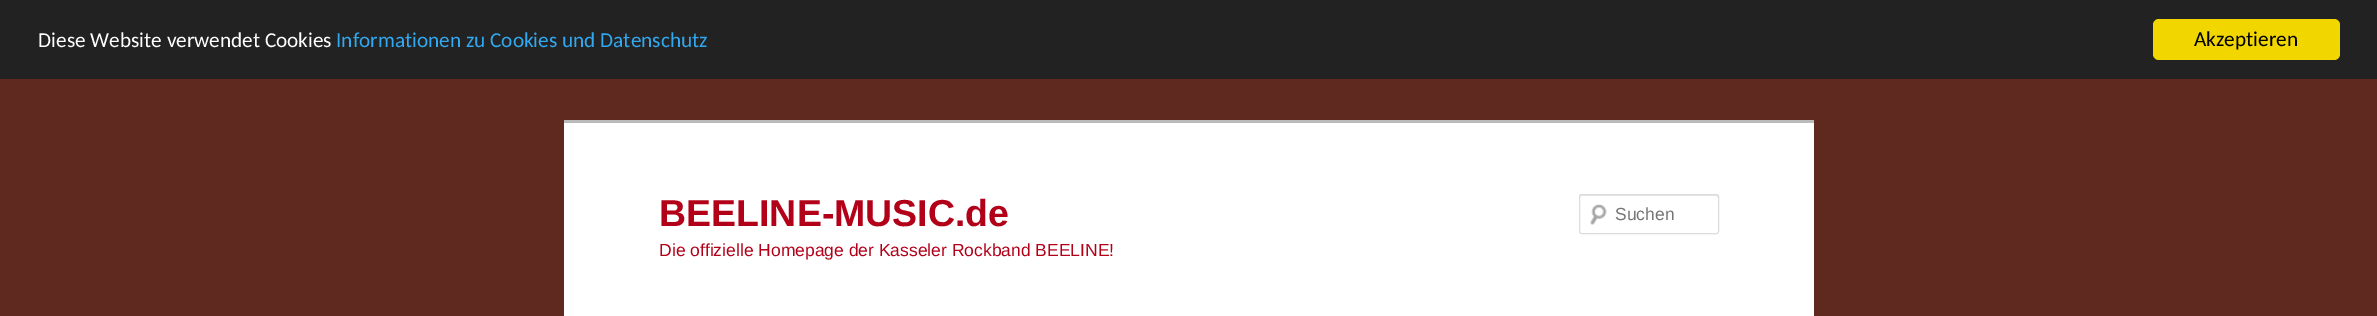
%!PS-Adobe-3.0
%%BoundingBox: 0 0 2377 316
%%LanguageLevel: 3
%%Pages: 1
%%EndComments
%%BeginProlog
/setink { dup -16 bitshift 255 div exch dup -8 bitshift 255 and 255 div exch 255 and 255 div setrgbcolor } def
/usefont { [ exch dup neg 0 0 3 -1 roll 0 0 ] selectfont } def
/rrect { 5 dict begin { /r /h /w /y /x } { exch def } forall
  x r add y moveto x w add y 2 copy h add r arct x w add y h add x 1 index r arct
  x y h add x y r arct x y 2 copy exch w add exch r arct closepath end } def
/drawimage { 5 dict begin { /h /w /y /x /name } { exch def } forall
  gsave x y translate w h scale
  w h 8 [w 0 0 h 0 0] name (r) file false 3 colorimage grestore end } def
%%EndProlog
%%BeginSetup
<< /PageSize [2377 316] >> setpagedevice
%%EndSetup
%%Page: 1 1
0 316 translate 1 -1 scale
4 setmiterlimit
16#60291F setink
0 0 2377 316 rectfill
16#222222 setink
0 0 2377 79 rectfill
/Carlito-Regular 21.25 usefont
16#FFFFFF setink
38 47 moveto (Diese Website verwendet Cookies) show
16#31A8F0 setink
336 47 moveto (Informationen zu Cookies und Datenschutz) show
16#F1D600 setink
2153 19 187 41 6 rrect fill
16#000000 setink
2194 46 moveto (Akzeptieren) show
16#FFFFFF setink
564 123 1250 193 rectfill
16#BBBBBB setink
564 120 1250 3 rectfill
/LiberationSans-Bold 37.5 usefont
16#B30019 setink
659 226 moveto (BEELINE-MUSIC.de) show
/LiberationSans-Regular 17.5 usefont
659 256 moveto (Die offizielle Homepage der Kasseler Rockband BEELINE!) show
(img1.raw) 1590 204 17 21 drawimage
16#E6E6E6 setink
1581 196 moveto 1716 196 lineto 1717 196 1718 197 1718 198 curveto 1718 197 1718 196 1717 195 curveto 1581 195 lineto 1580 195 1580 197 1580 198 curveto closepath fill
16#DDDDDD setink
1579.5 194.5 139 39 2 rrect stroke
16#757575 setink
1615 220 moveto (Suchen) show
showpage
%%EOF
